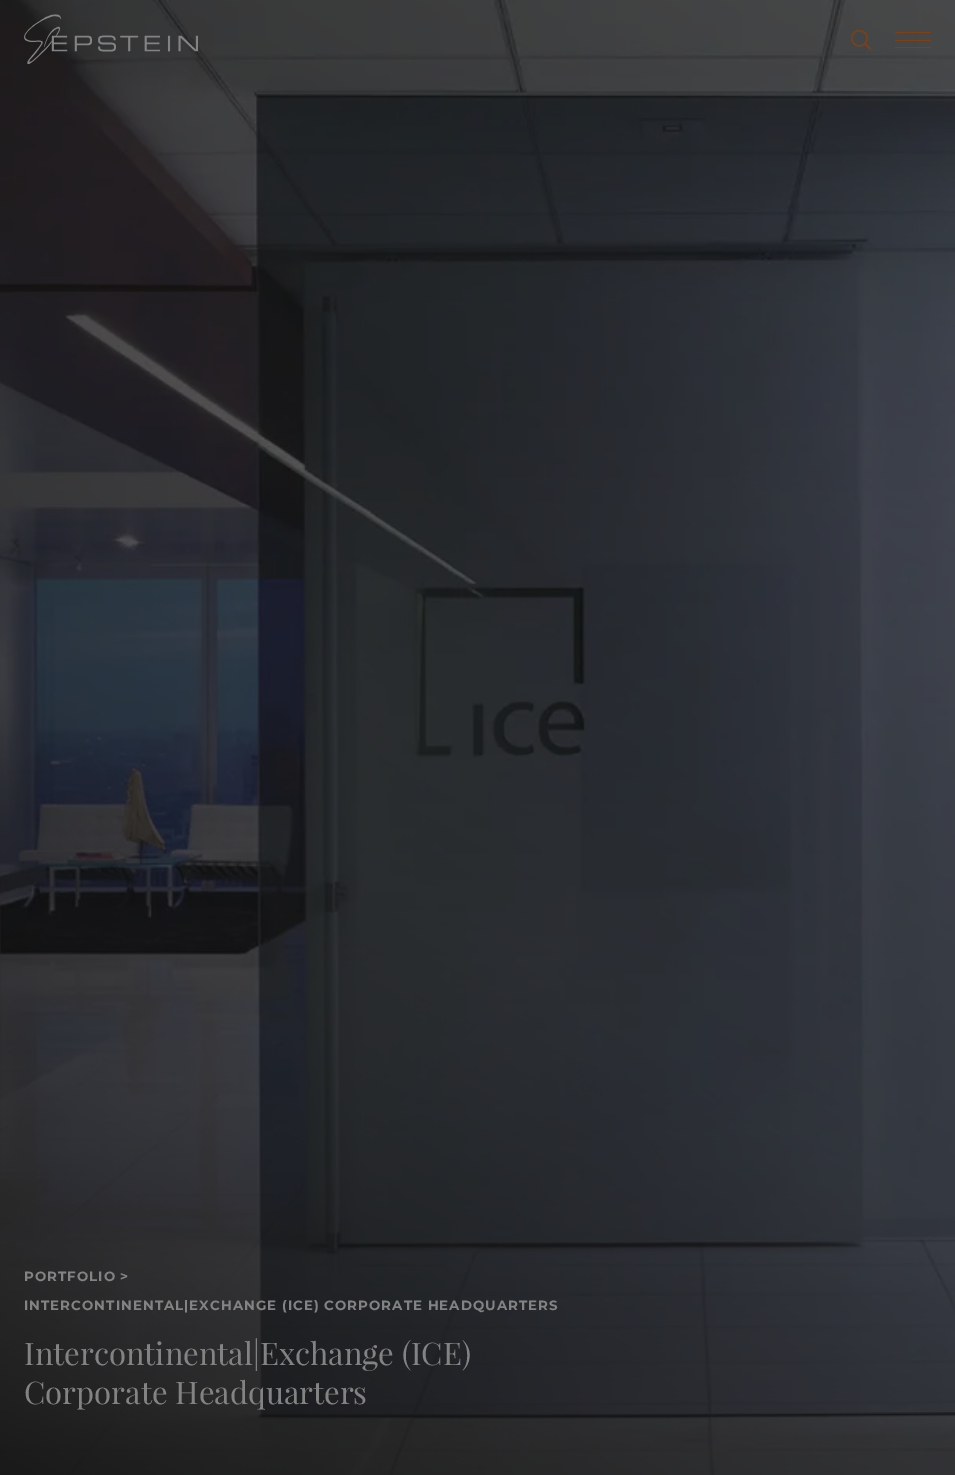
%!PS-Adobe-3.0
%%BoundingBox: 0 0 955 1475
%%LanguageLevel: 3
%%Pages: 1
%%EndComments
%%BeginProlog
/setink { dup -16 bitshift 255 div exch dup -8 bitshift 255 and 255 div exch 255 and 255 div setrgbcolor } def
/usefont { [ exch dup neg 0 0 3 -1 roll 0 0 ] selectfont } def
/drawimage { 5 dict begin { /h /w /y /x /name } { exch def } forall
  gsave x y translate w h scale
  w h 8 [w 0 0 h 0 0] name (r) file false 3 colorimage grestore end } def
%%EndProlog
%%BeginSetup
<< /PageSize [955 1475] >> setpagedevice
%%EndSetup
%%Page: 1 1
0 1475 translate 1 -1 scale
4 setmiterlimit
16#FFFFFF setink
0 0 955 1475 rectfill
(img3.raw) 0 0 955 1475 drawimage
(img1.raw) 24 14 174 50 drawimage
(img2.raw) 851 30 20 20 drawimage
[
    [895 32 36 1 16#833F11]
    [895 40 36 1 16#833F11]
    [895 47 36 1 16#833F11]
] { aload pop setink rectfill } forall
/Montserrat-Bold 13.4 usefont
16#838383 setink
24 1281 moveto 1 0 (PORTFOLIO) ashow
120 1281 moveto 1 0 (>) ashow
24 1310 moveto 1 0 (INTERCONTINENTAL|EXCHANGE \(ICE\) CORPORATE HEADQUARTERS) ashow
/PlayfairDisplay-Regular 31.1 usefont
24 1365 moveto (Intercontinental|Exchange \(ICE\)) show
24 1404 moveto (Corporate Headquarters) show
showpage
%%EOF
